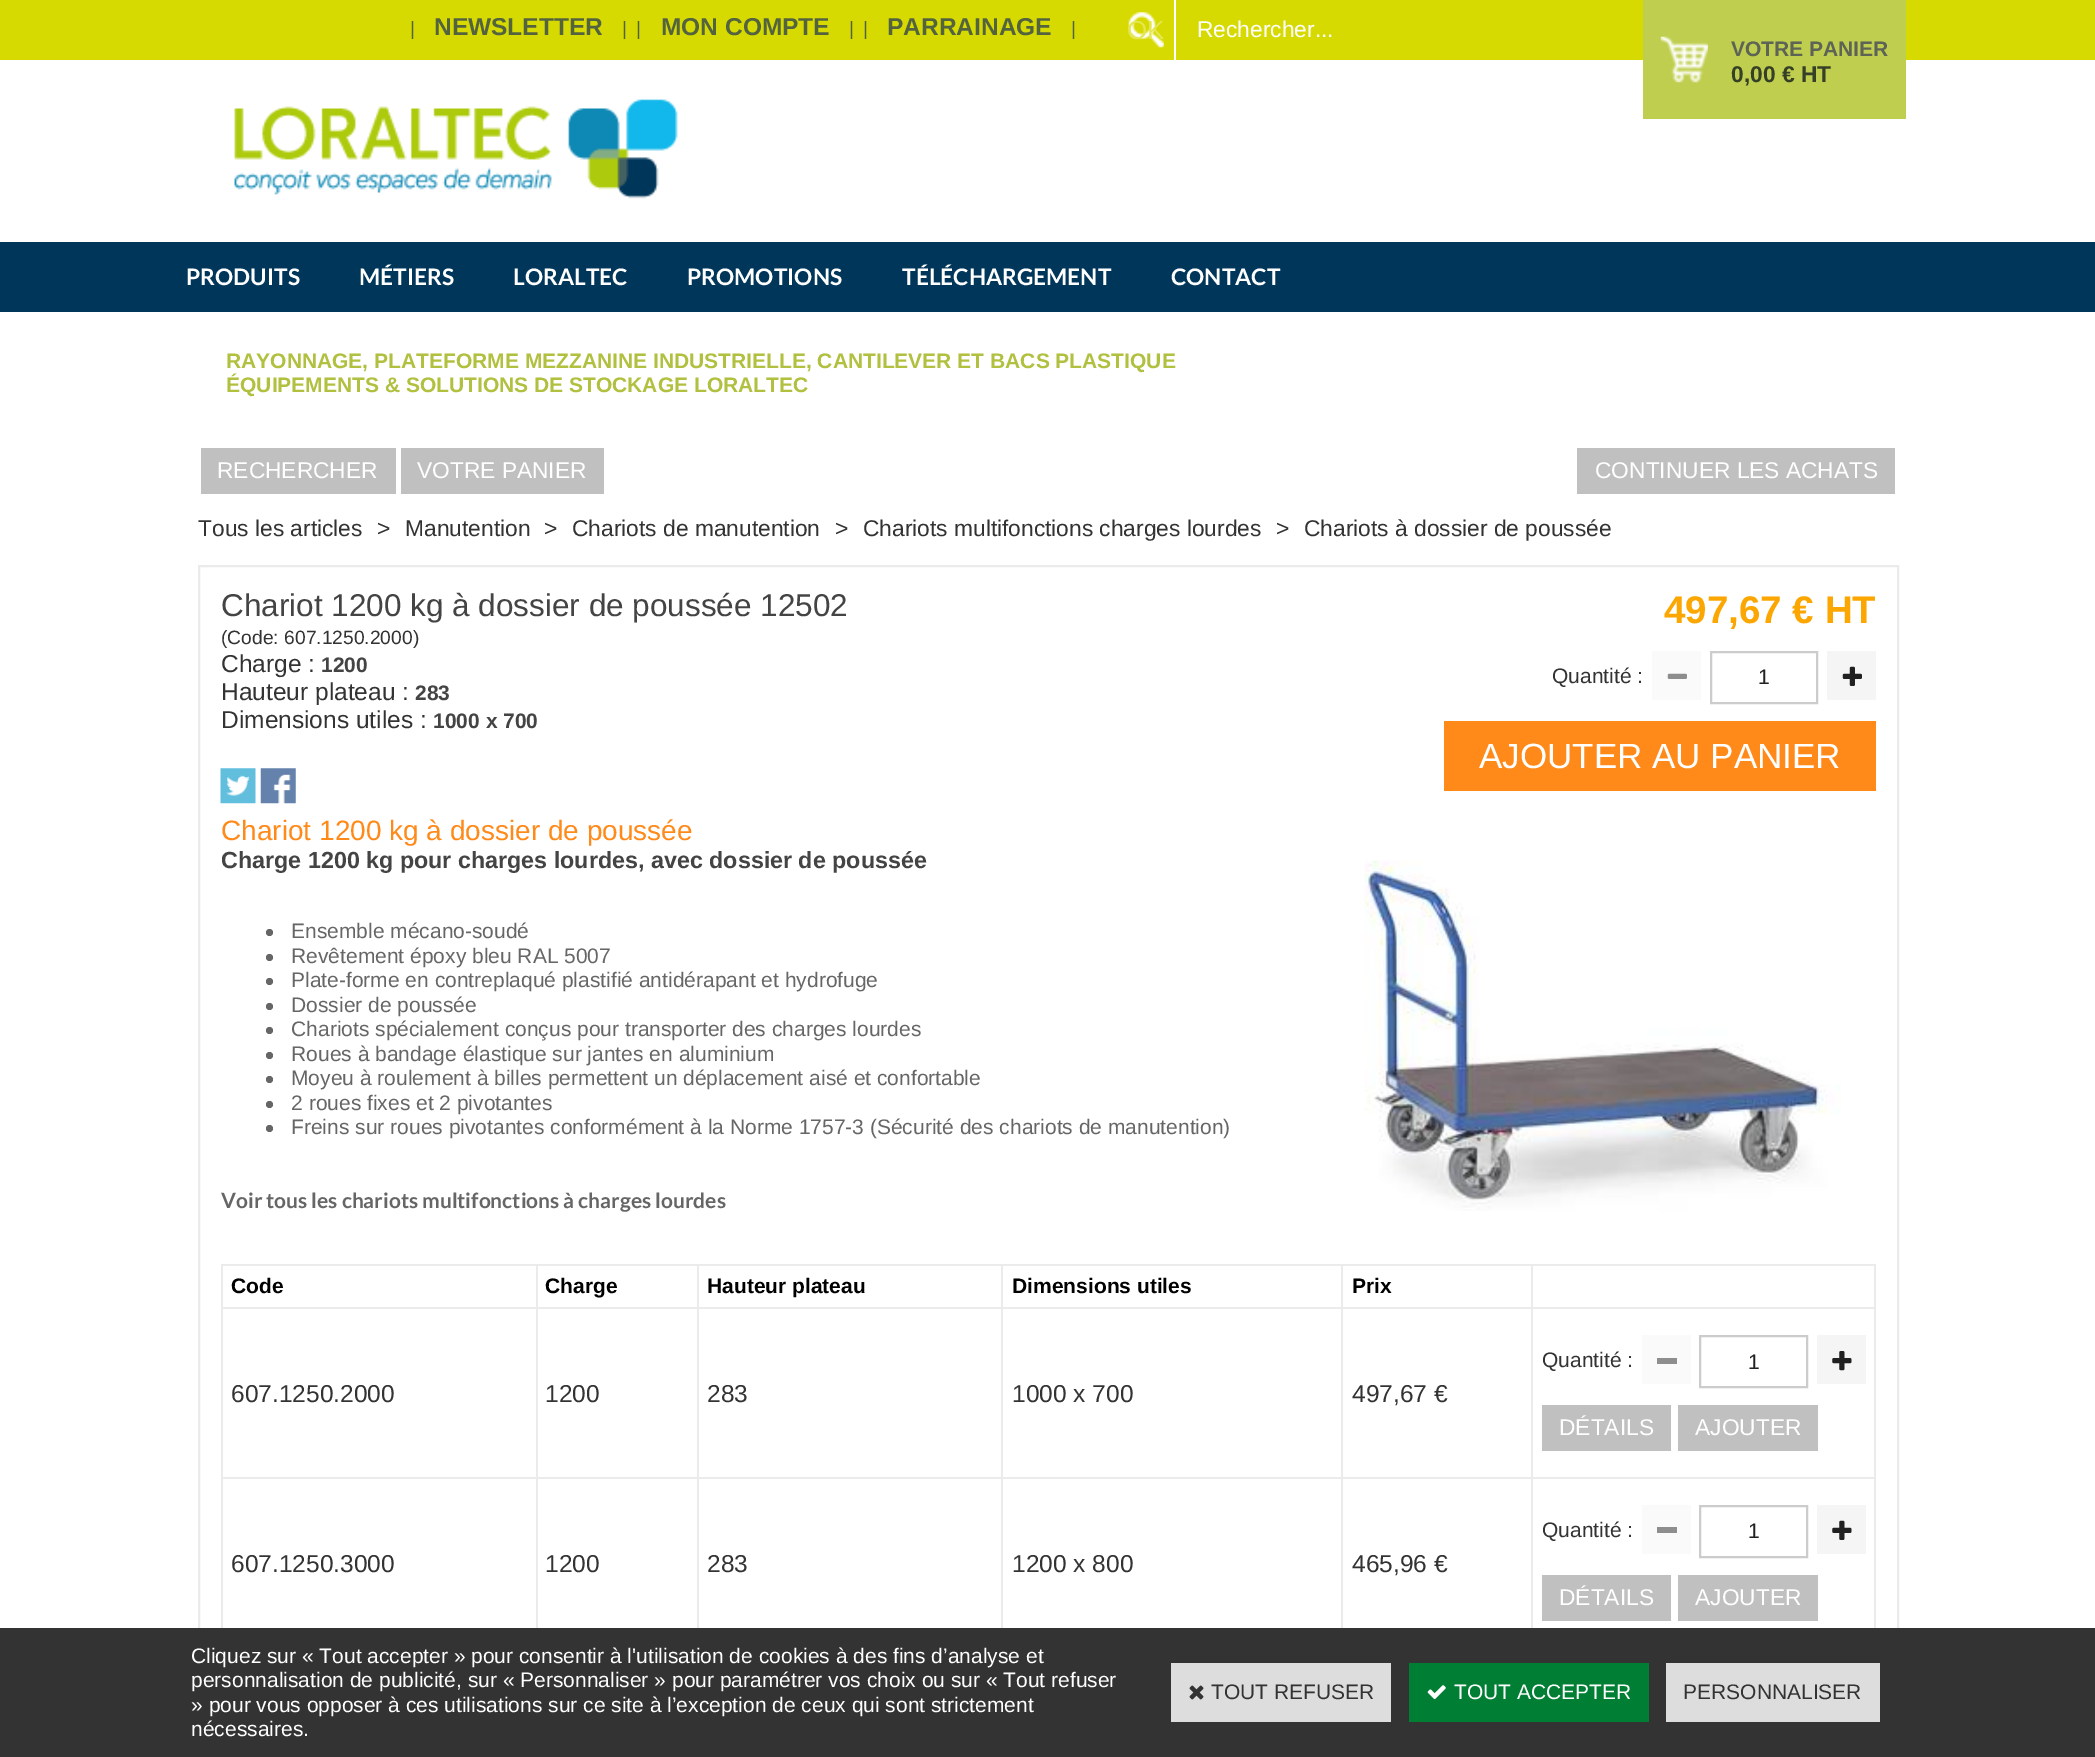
%!PS-Adobe-3.0
%%BoundingBox: 0 0 2095 1757
%%LanguageLevel: 3
%%Pages: 1
%%EndComments
%%BeginProlog
/setink { dup -16 bitshift 255 div exch dup -8 bitshift 255 and 255 div exch 255 and 255 div setrgbcolor } def
/usefont { [ exch dup neg 0 0 3 -1 roll 0 0 ] selectfont } def
/disc { newpath 0 360 arc closepath } def
/drawimage { 5 dict begin { /h /w /y /x /name } { exch def } forall
  gsave x y translate w h scale
  w h 8 [w 0 0 h 0 0] name (r) file false 3 colorimage grestore end } def
%%EndProlog
%%BeginSetup
<< /PageSize [2095 1757] >> setpagedevice
%%EndSetup
%%Page: 1 1
0 1757 translate 1 -1 scale
4 setmiterlimit
16#FFFFFF setink
0 0 2095 1757 rectfill
16#D7DA00 setink
0 0 2095 60 rectfill
/LiberationSans-Regular 19.25 usefont
16#53633F setink
410 35 moveto (|) show
/LiberationSans-Bold 24.5 usefont
434 35 moveto (NEWSLETTER) show
/LiberationSans-Regular 19.25 usefont
622 35 moveto (|) show
636 35 moveto (|) show
/LiberationSans-Bold 24.5 usefont
661 35 moveto (MON COMPTE) show
/LiberationSans-Regular 19.25 usefont
849 35 moveto (|) show
863 35 moveto (|) show
/LiberationSans-Bold 24.5 usefont
887 35 moveto (PARRAINAGE) show
/LiberationSans-Regular 19.25 usefont
1071 35 moveto (|) show
(img1.raw) 1128 12 36 36 drawimage
16#FFFFFF setink
1174 0 2 60 rectfill
/LiberationSans-Regular 26 usefont
16#E4E652 setink
1127 39 moveto (OK) show
/LiberationSans-Regular 22.75 usefont
16#FFFFFF setink
1197 37 moveto (Rechercher...) show
16#BFCE4F setink
1643 0 263 119 rectfill
(img2.raw) 1660 36 48 47 drawimage
/LiberationSans-Bold 21 usefont
16#5D6355 setink
1731 56 moveto (VOTRE PANIER) show
/LiberationSans-Bold 22.75 usefont
16#354026 setink
1731 82 moveto (0,00 € HT) show
(img3.raw) 234 99 444 100 drawimage
16#00365A setink
0 242 2095 70 rectfill
/Lato-Bold 22.75 usefont
16#FFFFFF setink
[
    [(PRODUITS) 186 285]
    [(MÉTIERS) 359 285]
    [(LORALTEC) 513 285]
    [(PROMOTIONS) 687 285]
    [(TÉLÉCHARGEMENT) 902 285]
    [(CONTACT) 1171 285]
] { aload pop moveto show } forall
/LiberationSans-Bold 21 usefont
16#B1C03F setink
226 368 moveto (RAYONNAGE, PLATEFORME MEZZANINE INDUSTRIELLE, CANTILEVER ET BACS PLASTIQUE) show
226 392 moveto (ÉQUIPEMENTS & SOLUTIONS DE STOCKAGE LORALTEC) show
16#C0C0C0 setink
201 448 195 46 rectfill
/LiberationSans-Regular 22.75 usefont
16#FFFFFF setink
217 478 moveto (RECHERCHER) show
16#C0C0C0 setink
401 448 203 46 rectfill
16#FFFFFF setink
417 478 moveto (VOTRE PANIER) show
16#C0C0C0 setink
1577 448 318 46 rectfill
16#FFFFFF setink
1595 478 moveto (CONTINUER LES ACHATS) show
16#333333 setink
[
    [(Tous les articles) 198 536]
    [(>) 377 536]
    [(Manutention) 405 536]
    [(>) 544 536]
    [(Chariots de manutention) 572 536]
    [(>) 835 536]
    [(Chariots multifonctions charges lourdes) 863 536]
    [(>) 1276 536]
    [(Chariots à dossier de poussée) 1304 536]
] { aload pop moveto show } forall
16#EBEBEB setink
2 setlinewidth
199 566 1699 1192 rectstroke
/LiberationSans-Regular 31.5 usefont
16#444444 setink
221 616 moveto (Chariot 1200 kg à dossier de poussée 12502) show
/LiberationSans-Regular 19.25 usefont
16#333333 setink
221 644 moveto (\(Code: 607.1250.2000\)) show
/LiberationSans-Regular 24.5 usefont
221 672 moveto (Charge :) show
/LiberationSans-Bold 21 usefont
16#444444 setink
321 672 moveto (1200) show
/LiberationSans-Regular 24.5 usefont
16#333333 setink
221 700 moveto (Hauteur plateau :) show
/LiberationSans-Bold 21 usefont
16#444444 setink
415 700 moveto (283) show
/LiberationSans-Regular 24.5 usefont
16#333333 setink
221 728 moveto (Dimensions utiles :) show
/LiberationSans-Bold 21 usefont
16#444444 setink
433 728 moveto (1000 x 700) show
(img4.raw) 220 768 36 36 drawimage
(img5.raw) 260 768 36 36 drawimage
/LiberationSans-Bold 38.5 usefont
16#FBA601 setink
1664 623 moveto (497,67 € HT) show
/LiberationSans-Regular 21 usefont
16#333333 setink
1552 683 moveto (Quantité :) show
16#FAFAFA setink
1652 651 49 49 rectfill
(img6.raw) 1667 673 20 6 drawimage
16#CCCCCC setink
1711 652 106 51 rectstroke
16#212121 setink
1758 684 moveto (1) show
16#F5F5F5 setink
1827 651 49 49 rectfill
(img7.raw) 1842 666 20 20 drawimage
16#FF8A19 setink
1444 721 432 70 rectfill
/LiberationSans-Regular 35 usefont
16#FFFFFF setink
1479 768 moveto (AJOUTER AU PANIER) show
/LiberationSans-Regular 28 usefont
16#FF8A19 setink
221 840 moveto (Chariot 1200 kg à dossier de poussée) show
/LiberationSans-Bold 23.3 usefont
16#444444 setink
221 868 moveto (Charge 1200 kg pour charges lourdes, avec dossier de poussée) show
16#666666 setink
269.5 932.5 3.5 disc fill
/LiberationSans-Regular 21 usefont
291 938 moveto (Ensemble mécano-soudé) show
269.5 957.5 3.5 disc fill
291 963 moveto (Revêtement époxy bleu RAL 5007) show
269.5 981.5 3.5 disc fill
291 987 moveto (Plate-forme en contreplaqué plastifié antidérapant et hydrofuge) show
269.5 1006.5 3.5 disc fill
291 1012 moveto (Dossier de poussée) show
269.5 1030.5 3.5 disc fill
291 1036 moveto (Chariots spécialement conçus pour transporter des charges lourdes) show
269.5 1055.5 3.5 disc fill
291 1061 moveto (Roues à bandage élastique sur jantes en aluminium) show
269.5 1079.5 3.5 disc fill
291 1085 moveto (Moyeu à roulement à billes permettent un déplacement aisé et confortable) show
269.5 1104.5 3.5 disc fill
291 1110 moveto (2 roues fixes et 2 pivotantes) show
269.5 1128.5 3.5 disc fill
291 1134 moveto (Freins sur roues pivotantes conformément à la Norme 1757-3 \(Sécurité des chariots de manutention\)) show
/Lato-Bold 21 usefont
221 1208 moveto (Voir tous les chariots multifonctions à charges lourdes) show
(img8.raw) 1364 860 477 351 drawimage
[
    [221 1264 1655 2 16#EBEBEB]
    [1874 1264 2 364 16#EBEBEB]
    [221 1264 2 364 16#EBEBEB]
] { aload pop setink rectfill } forall
/LiberationSans-Bold 21 usefont
16#000000 setink
231 1293 moveto (Code) show
[
    [1531 1307 345 2 16#EBEBEB]
    [1531 1477 345 2 16#EBEBEB]
    [1531 1477 2 151 16#EBEBEB]
    [1341 1477 192 2 16#EBEBEB]
    [1531 1307 2 172 16#EBEBEB]
    [1341 1307 192 2 16#EBEBEB]
    [1341 1477 2 151 16#EBEBEB]
    [1001 1477 341 2 16#EBEBEB]
    [1341 1307 2 172 16#EBEBEB]
    [1001 1307 341 2 16#EBEBEB]
    [1001 1477 2 151 16#EBEBEB]
    [697 1477 306 2 16#EBEBEB]
    [1001 1307 2 172 16#EBEBEB]
    [697 1307 306 2 16#EBEBEB]
    [697 1477 2 151 16#EBEBEB]
    [536 1477 162 2 16#EBEBEB]
    [697 1307 2 172 16#EBEBEB]
    [536 1307 162 2 16#EBEBEB]
    [536 1477 2 151 16#EBEBEB]
    [221 1477 316 2 16#EBEBEB]
    [536 1307 2 172 16#EBEBEB]
    [221 1307 316 2 16#EBEBEB]
    [536 1264 2 45 16#EBEBEB]
] { aload pop setink rectfill } forall
16#000000 setink
545 1293 moveto (Charge) show
16#EBEBEB setink
697 1264 2 45 rectfill
16#000000 setink
707 1293 moveto (Hauteur plateau) show
16#EBEBEB setink
1001 1264 2 45 rectfill
16#000000 setink
1012 1293 moveto (Dimensions utiles) show
16#EBEBEB setink
1341 1264 2 45 rectfill
16#000000 setink
1352 1293 moveto (Prix) show
16#EBEBEB setink
1531 1264 2 45 rectfill
/LiberationSans-Regular 24.5 usefont
16#333333 setink
[
    [(607.1250.2000) 231 1402]
    [(1200) 545 1402]
    [(283) 707 1402]
    [(1000 x 700) 1012 1402]
    [(497,67 €) 1352 1402]
] { aload pop moveto show } forall
/LiberationSans-Regular 21 usefont
1542 1367 moveto (Quantité :) show
16#FAFAFA setink
1642 1335 49 49 rectfill
16#8E8E8E setink
1657 1358 20 6 rectfill
16#CCCCCC setink
1700 1336 107 51 rectstroke
16#212121 setink
1748 1369 moveto (1) show
16#F5F5F5 setink
1817 1335 49 49 rectfill
(img9.raw) 1832 1351 20 20 drawimage
16#C0C0C0 setink
1542 1405 129 46 rectfill
/LiberationSans-Regular 22.75 usefont
16#FFFFFF setink
1559 1435 moveto (DÉTAILS) show
16#C0C0C0 setink
1678 1405 140 46 rectfill
16#FFFFFF setink
1695 1435 moveto (AJOUTER) show
/LiberationSans-Regular 24.5 usefont
16#333333 setink
[
    [(607.1250.3000) 231 1572]
    [(1200) 545 1572]
    [(283) 707 1572]
    [(1200 x 800) 1012 1572]
    [(465,96 €) 1352 1572]
] { aload pop moveto show } forall
/LiberationSans-Regular 21 usefont
1542 1537 moveto (Quantité :) show
16#FAFAFA setink
1642 1505 49 49 rectfill
16#8E8E8E setink
1657 1527 20 6 rectfill
16#CCCCCC setink
1700 1506 107 51 rectstroke
16#212121 setink
1748 1538 moveto (1) show
16#F5F5F5 setink
1817 1505 49 49 rectfill
(img10.raw) 1832 1520 20 20 drawimage
16#C0C0C0 setink
1542 1575 129 46 rectfill
/LiberationSans-Regular 22.75 usefont
16#FFFFFF setink
1559 1605 moveto (DÉTAILS) show
16#C0C0C0 setink
1678 1575 140 46 rectfill
16#FFFFFF setink
1695 1605 moveto (AJOUTER) show
16#333333 setink
0 1628 2095 129 rectfill
/LiberationSans-Regular 21 usefont
16#FFFFFF setink
[
    [(Cliquez sur « Tout accepter » pour consentir à l'utilisation de cookies à des fins d’analyse et) 191 1663]
    [(personnalisation de publicité, sur « Personnaliser » pour paramétrer vos choix ou sur « Tout refuser) 191 1687]
    [(» pour vous opposer à ces utilisations sur ce site à l’exception de ceux qui sont strictement) 191 1712]
    [(nécessaires.) 191 1736]
] { aload pop moveto show } forall
16#DDDDDD setink
1171 1663 220 59 rectfill
(img11.raw) 1189 1685 15 15 drawimage
16#333333 setink
1211 1699 moveto (TOUT REFUSER) show
16#007E33 setink
1409 1663 240 59 rectfill
(img12.raw) 1427 1685 19 15 drawimage
16#FFFFFF setink
1454 1699 moveto (TOUT ACCEPTER) show
16#DDDDDD setink
1666 1663 214 59 rectfill
16#333333 setink
1683 1699 moveto (PERSONNALISER) show
showpage
%%EOF
